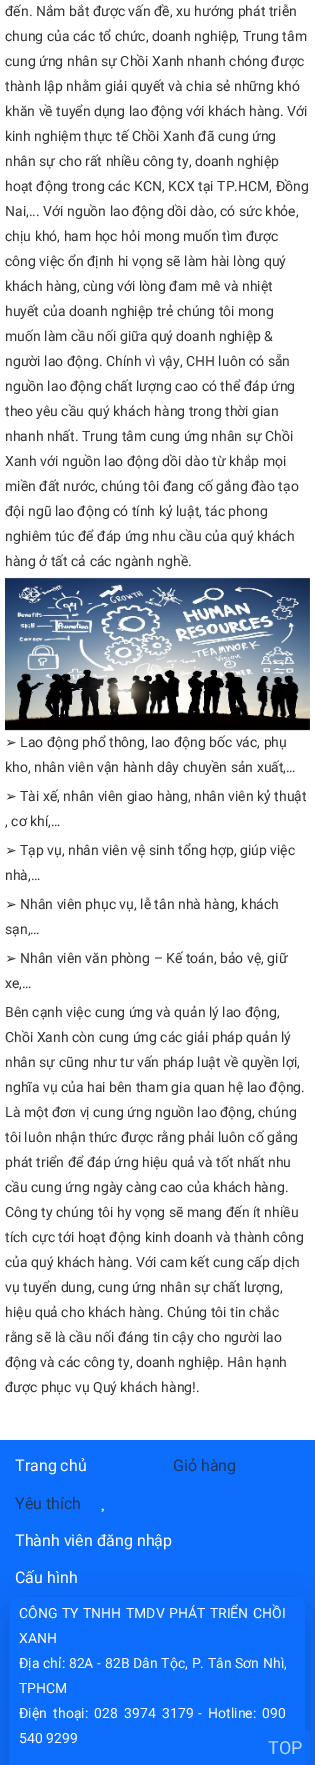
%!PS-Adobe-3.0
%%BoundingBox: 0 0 315 1765
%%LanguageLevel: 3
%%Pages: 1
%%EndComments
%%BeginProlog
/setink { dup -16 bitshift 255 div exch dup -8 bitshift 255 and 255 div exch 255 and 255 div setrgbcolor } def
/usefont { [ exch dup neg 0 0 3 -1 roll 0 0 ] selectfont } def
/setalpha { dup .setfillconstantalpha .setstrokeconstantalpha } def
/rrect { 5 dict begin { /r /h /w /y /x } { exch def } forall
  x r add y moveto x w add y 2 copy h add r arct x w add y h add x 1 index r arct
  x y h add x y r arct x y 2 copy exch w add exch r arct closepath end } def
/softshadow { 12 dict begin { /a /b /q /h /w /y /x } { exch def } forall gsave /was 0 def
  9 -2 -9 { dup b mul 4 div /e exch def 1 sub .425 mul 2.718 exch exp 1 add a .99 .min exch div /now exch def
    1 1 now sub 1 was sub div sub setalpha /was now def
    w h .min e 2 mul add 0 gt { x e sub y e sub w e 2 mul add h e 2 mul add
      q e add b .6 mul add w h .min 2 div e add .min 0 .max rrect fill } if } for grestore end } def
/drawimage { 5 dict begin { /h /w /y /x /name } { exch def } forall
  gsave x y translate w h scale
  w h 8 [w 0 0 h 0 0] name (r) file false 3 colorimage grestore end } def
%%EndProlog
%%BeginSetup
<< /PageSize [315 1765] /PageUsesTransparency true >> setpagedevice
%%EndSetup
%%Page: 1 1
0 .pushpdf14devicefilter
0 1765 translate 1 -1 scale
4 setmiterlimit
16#FFFFFF setink
0 0 315 1765 rectfill
/Roboto-Regular 14 usefont
16#333333 setink
[
    [(đến. Nắm bắt được vấn đề, xu hướng phát triễn) 5 16]
    [(chung của các tổ chức, doanh nghiệp, Trung tâm) 5 41]
    [(cung ứng nhân sự Chồi Xanh nhanh chóng được) 5 66]
    [(thành lập nhằm giải quyết và chia sẻ những khó) 5 91]
    [(khăn về tuyển dụng lao động với khách hàng. Với) 5 116]
    [(kinh nghiệm thực tế Chồi Xanh đã cung ứng) 5 141]
    [(nhân sự cho rất nhiều công ty, doanh nghiệp) 5 166]
    [(hoạt động trong các KCN, KCX tại TP.HCM, Đồng) 5 191]
    [(Nai,... Với nguồn lao động dồi dào, có sức khỏe,) 5 216]
    [(chịu khó, ham học hỏi mong muốn tìm được) 5 241]
    [(công việc ổn định hi vọng sẽ làm hài lòng quý) 5 266]
    [(khách hàng, cùng với lòng đam mê và nhiệt) 5 291]
    [(huyết của doanh nghiệp trẻ chúng tôi mong) 5 316]
    [(muốn làm cầu nối giữa quý doanh nghiệp &) 5 341]
    [(người lao động. Chính vì vậy, CHH luôn có sẵn) 5 366]
    [(nguồn lao động chất lượng cao có thể đáp ứng) 5 391]
    [(theo yêu cầu quý khách hàng trong thời gian) 5 416]
    [(nhanh nhất. Trung tâm cung ứng nhân sự Chồi) 5 441]
    [(Xanh với nguồn lao động dồi dào từ khắp mọi) 5 466]
    [(miền đất nước, chúng tôi đang cố gắng đào tạo) 5 491]
    [(đội ngũ lao động có tính kỷ luật, tác phong) 5 516]
    [(nghiêm túc để đáp ứng nhu cầu của quý khách) 5 541]
    [(hàng ở tất cả các ngành nghề.) 5 566]
] { aload pop moveto show } forall
(img1.raw) 5 577 305 154 drawimage
/DejaVuSans-Regular 14 usefont
5 747 moveto (➢) show
/Roboto-Regular 14 usefont
20 747 moveto (Lao động phổ thông, lao động bốc vác, phụ) show
5 772 moveto (kho, nhân viên vận hành dây chuyền sản xuất,…) show
/DejaVuSans-Regular 14 usefont
5 801 moveto (➢) show
/Roboto-Regular 14 usefont
20 801 moveto (Tài xế, nhân viên giao hàng, nhân viên kỷ thuật) show
5 826 moveto (, cơ khí,…) show
/DejaVuSans-Regular 14 usefont
5 855 moveto (➢) show
/Roboto-Regular 14 usefont
20 855 moveto (Tạp vụ, nhân viên vệ sinh tổng hợp, giúp việc) show
5 880 moveto (nhà,…) show
/DejaVuSans-Regular 14 usefont
5 909 moveto (➢) show
/Roboto-Regular 14 usefont
20 909 moveto (Nhân viên phục vụ, lễ tân nhà hàng, khách) show
5 934 moveto (sạn,…) show
/DejaVuSans-Regular 14 usefont
5 963 moveto (➢) show
/Roboto-Regular 14 usefont
[
    [(Nhân viên văn phòng – Kế toán, bảo vệ, giữ) 20 963]
    [(xe,…) 5 988]
    [(Bên cạnh việc cung ứng và quản lý lao động,) 5 1017]
    [(Chồi Xanh còn cung ứng các giải pháp quản lý) 5 1042]
    [(nhân sự cũng như tư vấn pháp luật về quyền lợi,) 5 1067]
    [(nghĩa vụ của hai bên tham gia quan hệ lao động.) 5 1092]
    [(Là một đơn vị cung ứng nguồn lao động, chúng) 5 1117]
    [(tôi luôn nhận thức được rằng phải luôn cố gắng) 5 1142]
    [(phát triển để đáp ứng hiệu quả và tốt nhất nhu) 5 1167]
    [(cầu cung ứng ngày càng cao của khách hàng.) 5 1192]
    [(Công ty chúng tôi hy vọng sẽ mang đến ít nhiều) 5 1217]
    [(tích cực tới hoạt động kinh doanh và thành công) 5 1242]
    [(của quý khách hàng. Với cam kết cung cấp dịch) 5 1267]
    [(vụ tuyển dung, cung ứng nhân sự chất lượng,) 5 1292]
    [(hiệu quả cho khách hàng. Chúng tôi tin chắc) 5 1317]
    [(rằng sẽ là cầu nối đáng tin cậy cho người lao) 5 1342]
    [(động và các công ty, doanh nghiệp. Hân hạnh) 5 1367]
    [(được phục vụ Quý khách hàng!.) 5 1392]
] { aload pop moveto show } forall
16#0D6EFD setink
0 1440 315 325 rectfill
/Roboto-Regular 16 usefont
16#FFFFFF setink
15 1471 moveto (Trang chủ) show
16#1C375E setink
173 1471 moveto (Giỏ hàng) show
15 1509 moveto (Yêu thích) show
(img2.raw) 101 1508 3 4 drawimage
gsave
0 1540 moveto 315 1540 lineto 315 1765 lineto 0 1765 lineto closepath 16 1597 moveto 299 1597 lineto 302.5 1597 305 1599.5 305 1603 curveto 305 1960 lineto 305 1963.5 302.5 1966 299 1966 curveto 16 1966 lineto 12.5 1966 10 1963.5 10 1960 curveto 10 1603 lineto 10 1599.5 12.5 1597 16 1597 curveto closepath eoclip newpath
16#000000 setink
10 1613 295 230 6 24 0.18 softshadow
grestore
16#FFFFFF setink
15 1546 moveto (Thành viên đăng nhập) show
15 1583 moveto (Cấu hình) show
/Roboto-Regular 14 usefont
19 1618 moveto 1 0 32 (CÔNG TY TNHH TMDV PHÁT TRIỂN CHỒI) widthshow
19 1643 moveto (XANH) show
19 1668 moveto 0.25 0 32 (Địa chỉ: 82A - 82B Dân Tộc, P. Tân Sơn Nhì,) widthshow
19 1693 moveto (TPHCM) show
19 1718 moveto 3 0 32 (Điện thoại:) widthshow
94 1718 moveto 3 0 32 (028 3974 3179) widthshow
198 1718 moveto 3 0 32 (- Hotline:) widthshow
262 1718 moveto (090) show
19 1743 moveto (540 9299) show
0.7 setalpha
16#0D6EFD setink
233 1730 77 35 5 rrect fill
/Roboto-Regular 18 usefont
1 setalpha
16#B6D4FE setink
268 1754 moveto (TOP) show
.poppdf14devicefilter showpage
%%EOF
